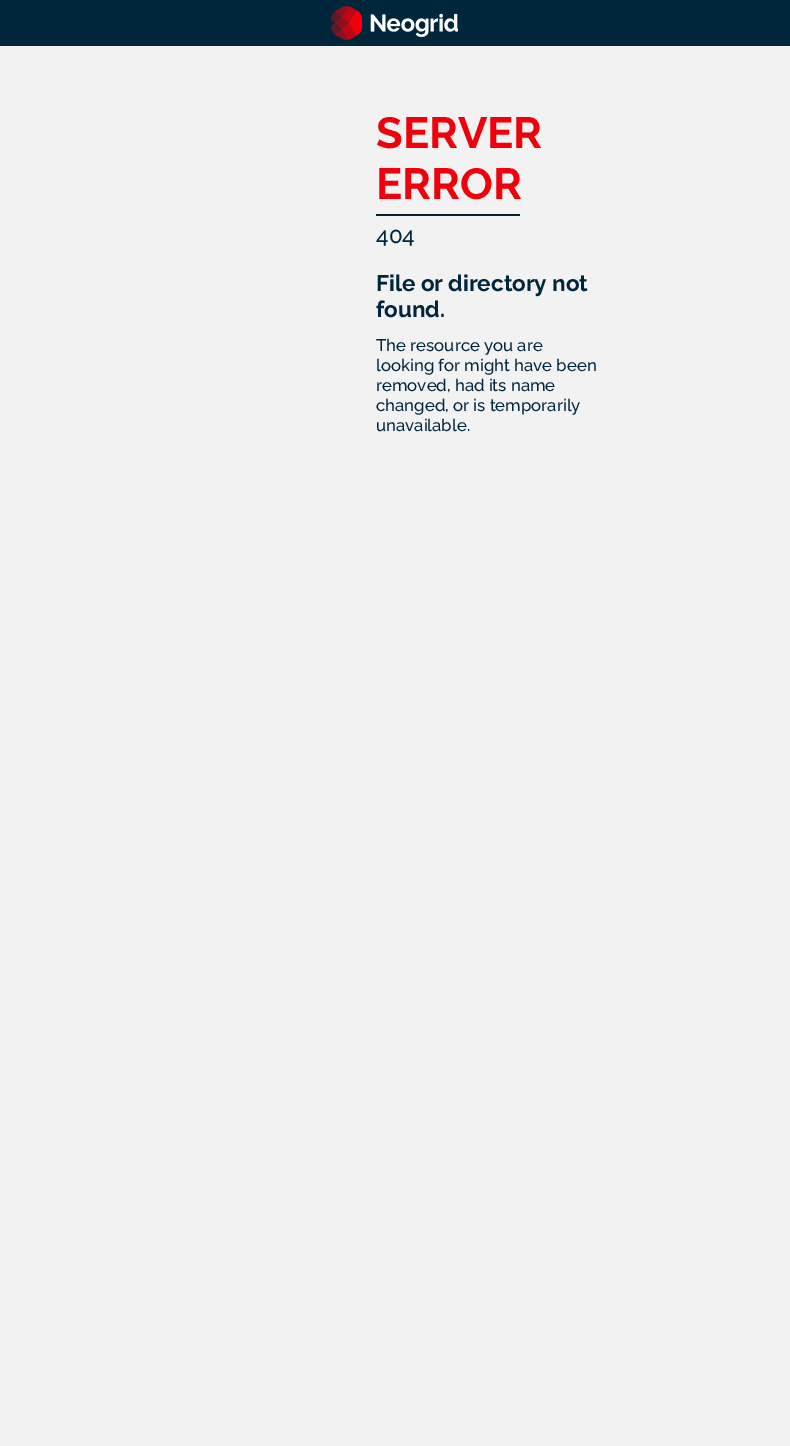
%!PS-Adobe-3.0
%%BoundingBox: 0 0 790 1446
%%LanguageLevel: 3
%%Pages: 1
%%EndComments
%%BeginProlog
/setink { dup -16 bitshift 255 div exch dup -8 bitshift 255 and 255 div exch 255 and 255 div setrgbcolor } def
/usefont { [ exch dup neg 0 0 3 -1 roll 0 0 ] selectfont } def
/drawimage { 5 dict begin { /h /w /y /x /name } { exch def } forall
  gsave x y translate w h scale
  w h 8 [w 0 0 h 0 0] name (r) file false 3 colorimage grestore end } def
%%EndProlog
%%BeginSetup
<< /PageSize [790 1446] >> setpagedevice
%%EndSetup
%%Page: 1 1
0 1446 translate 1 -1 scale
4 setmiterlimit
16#F2F2F2 setink
0 0 790 1446 rectfill
16#00263C setink
0 0 790 46 rectfill
(img1.raw) 331 6 127 34 drawimage
/Raleway-Bold 43.5 usefont
16#F0000A setink
376 148 moveto (SERVER) show
376 199 moveto (ERROR) show
[
    [376 214 144 1 16#001928]
    [519 214 1 2 16#00263C]
    [376 215 144 1 16#00263C]
    [376 214 1 2 16#001928]
] { aload pop setink rectfill } forall
/Raleway-Medium 22.5 usefont
16#00263C setink
376 243 moveto (404) show
/Raleway-Bold 22.5 usefont
376 291 moveto (File or directory not) show
376 317 moveto (found.) show
/Raleway-Medium 16.75 usefont
[
    [(The resource you are) 376 351]
    [(looking for might have been) 376 371]
    [(removed, had its name) 376 391]
    [(changed, or is temporarily) 376 411]
    [(unavailable.) 376 431]
] { aload pop moveto show } forall
showpage
%%EOF
